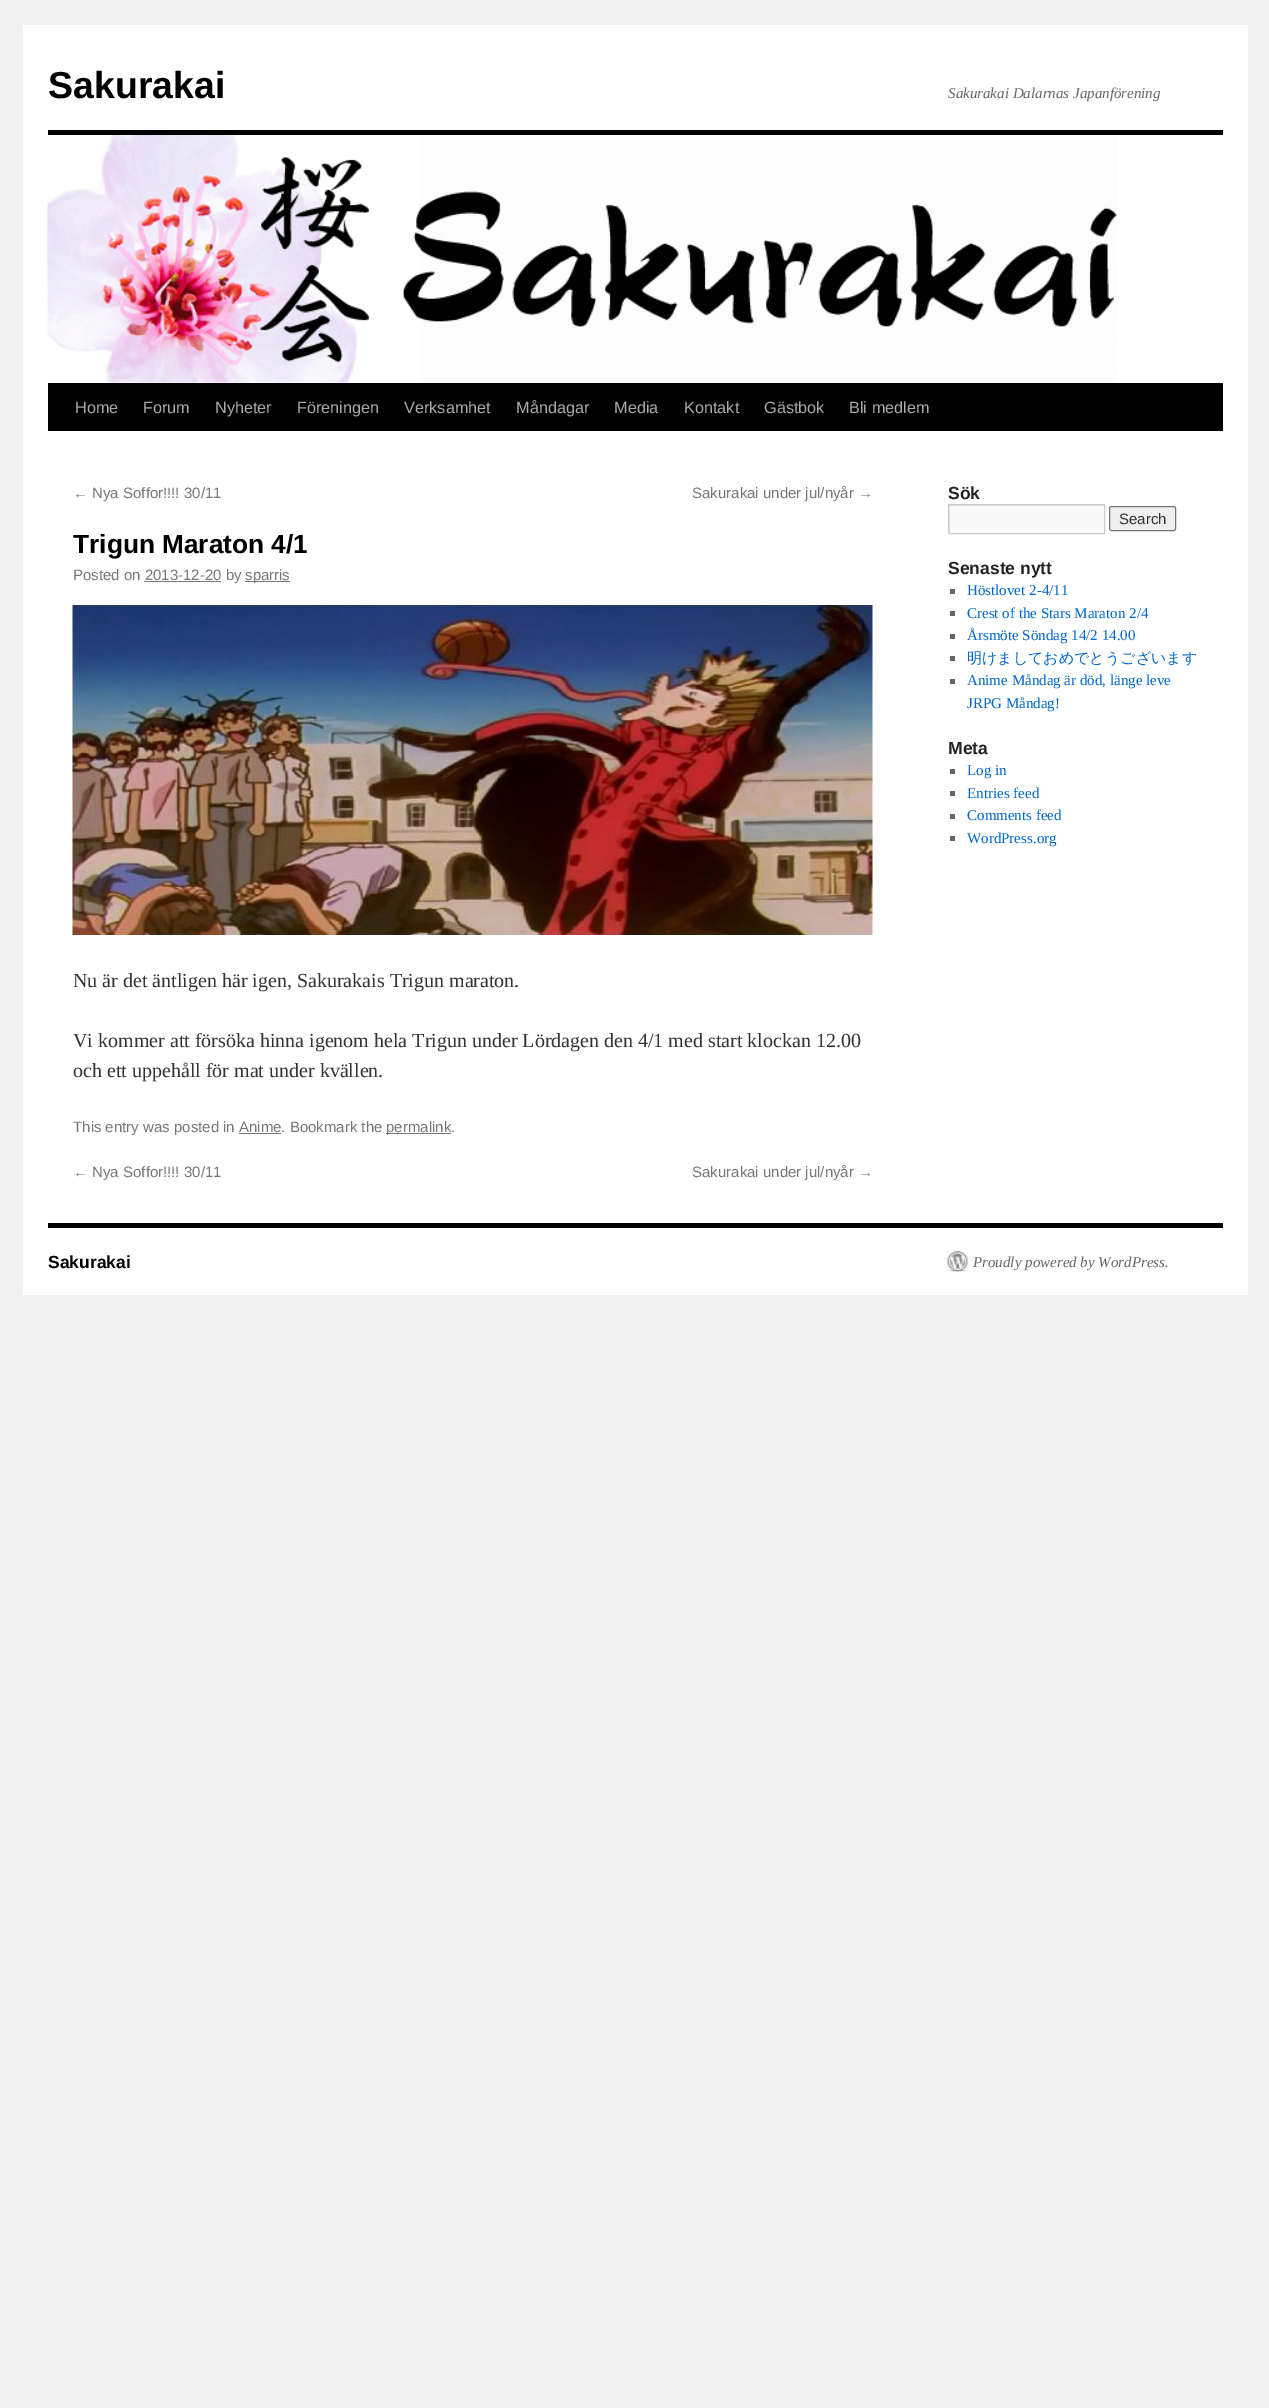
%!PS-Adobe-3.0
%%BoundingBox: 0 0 1269 2408
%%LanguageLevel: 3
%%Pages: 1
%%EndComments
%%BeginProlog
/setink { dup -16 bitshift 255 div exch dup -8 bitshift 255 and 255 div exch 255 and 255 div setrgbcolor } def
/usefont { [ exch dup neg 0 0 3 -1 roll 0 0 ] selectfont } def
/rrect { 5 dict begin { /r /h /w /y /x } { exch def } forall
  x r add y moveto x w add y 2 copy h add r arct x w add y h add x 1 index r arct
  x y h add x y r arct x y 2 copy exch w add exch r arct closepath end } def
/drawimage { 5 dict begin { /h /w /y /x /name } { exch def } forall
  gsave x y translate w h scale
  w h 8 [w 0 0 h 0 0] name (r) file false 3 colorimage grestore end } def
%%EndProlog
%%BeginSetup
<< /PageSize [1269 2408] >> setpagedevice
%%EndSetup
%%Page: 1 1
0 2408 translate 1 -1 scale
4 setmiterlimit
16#F1F1F1 setink
0 0 1269 2408 rectfill
16#FFFFFF setink
23 25 1225 1270 rectfill
/LiberationSans-Bold 37.5 usefont
16#000000 setink
48 98 moveto (Sakurakai) show
/LiberationSerif-Italic 15 usefont
16#666666 setink
948 98 moveto (Sakurakai Dalarnas Japanförening) show
16#000000 setink
48 130 1175 5 rectfill
48 383 1175 48 rectfill
(img1.raw) 47 135 1070 248 drawimage
/LiberationSans-Regular 16.25 usefont
16#AAAAAA setink
[
    [(Home) 75 413]
    [(Forum) 143 413]
    [(Nyheter) 215 413]
    [(Föreningen) 297 413]
    [(Verksamhet) 404 413]
    [(Måndagar) 516 413]
    [(Media) 614 413]
    [(Kontakt) 684 413]
    [(Gästbok) 764 413]
    [(Bli medlem) 849 413]
] { aload pop moveto show } forall
/LiberationSans-Regular 15 usefont
16#777777 setink
73 498 moveto (← Nya Soffor!!!! 30/11) show
692 498 moveto (Sakurakai under jul/nyår →) show
/LiberationSans-Bold 26.25 usefont
16#000000 setink
73 553 moveto (Trigun Maraton 4/1) show
/LiberationSans-Regular 15 usefont
16#777777 setink
73 580 moveto (Posted on 2013-12-20 by) show
245 581 45 1 rectfill
245 580 moveto (sparris) show
144 581 77 1 rectfill
(img2.raw) 72 605 801 330 drawimage
/LiberationSerif-Regular 20 usefont
16#333333 setink
[
    [(Nu är det äntligen här igen, Sakurakais Trigun maraton.) 73 987]
    [(Vi kommer att försöka hinna igenom hela Trigun under Lördagen den 4/1 med start klockan 12.00) 73 1047]
    [(och ett uppehåll för mat under kvällen.) 73 1077]
] { aload pop moveto show } forall
/LiberationSans-Regular 15 usefont
16#777777 setink
73 1132 moveto (This entry was posted in Anime. Bookmark the) show
386 1133 65 1 rectfill
386 1132 moveto (permalink.) show
239 1133 42 1 rectfill
73 1177 moveto (← Nya Soffor!!!! 30/11) show
692 1177 moveto (Sakurakai under jul/nyår →) show
/LiberationSans-Bold 17.5 usefont
16#222222 setink
948 499 moveto (Sök) show
16#F9F9F9 setink
950 506 154 27 rectfill
gsave
949 505 155 28 rectclip
16#E0E0E0 setink
825 381 moveto 1228 381 lineto 1228 656 lineto 825 656 lineto closepath 950 506 moveto 1105 506 lineto 1105 534 lineto 950 534 lineto closepath eofill
grestore
16#CCCCCC setink
948.5 504.5 156 29 rectstroke
16#EFEFEF setink
1109.5 506.5 66 24 2 rrect gsave fill grestore
16#767676 setink
stroke
/LiberationSans-Regular 15 usefont
16#333333 setink
1119 524 moveto (Search) show
/LiberationSans-Bold 17.5 usefont
16#222222 setink
948 574 moveto (Senaste nytt) show
16#666666 setink
950 589 5 5 rectfill
/LiberationSerif-Regular 15 usefont
16#0066CC setink
967 595 moveto (Höstlovet 2-4/11) show
16#666666 setink
950 611 5 5 rectfill
16#0066CC setink
967 618 moveto (Crest of the Stars Maraton 2/4) show
16#666666 setink
950 634 5 5 rectfill
16#0066CC setink
967 640 moveto (Årsmöte Söndag 14/2 14.00) show
16#666666 setink
950 656 5 5 rectfill
/WenQuanYiZenHei-Medium 15 usefont
16#0066CC setink
967 663 moveto (明けましておめでとうございます) show
16#666666 setink
950 679 5 5 rectfill
/LiberationSerif-Regular 15 usefont
16#0066CC setink
967 685 moveto (Anime Måndag är död, länge leve) show
967 708 moveto (JRPG Måndag!) show
/LiberationSans-Bold 17.5 usefont
16#222222 setink
948 754 moveto (Meta) show
16#666666 setink
950 769 5 5 rectfill
/LiberationSerif-Regular 15 usefont
16#0066CC setink
967 775 moveto (Log in) show
16#666666 setink
950 791 5 5 rectfill
16#0066CC setink
967 798 moveto (Entries feed) show
16#666666 setink
950 814 5 5 rectfill
16#0066CC setink
967 820 moveto (Comments feed) show
16#666666 setink
950 836 5 5 rectfill
16#0066CC setink
967 843 moveto (WordPress.org) show
16#000000 setink
48 1223 1175 5 rectfill
/LiberationSans-Bold 17.5 usefont
48 1268 moveto (Sakurakai) show
(img3.raw) 947 1251 21 21 drawimage
/LiberationSerif-Italic 15 usefont
16#666666 setink
973 1267 moveto (Proudly powered by WordPress.) show
showpage
%%EOF
